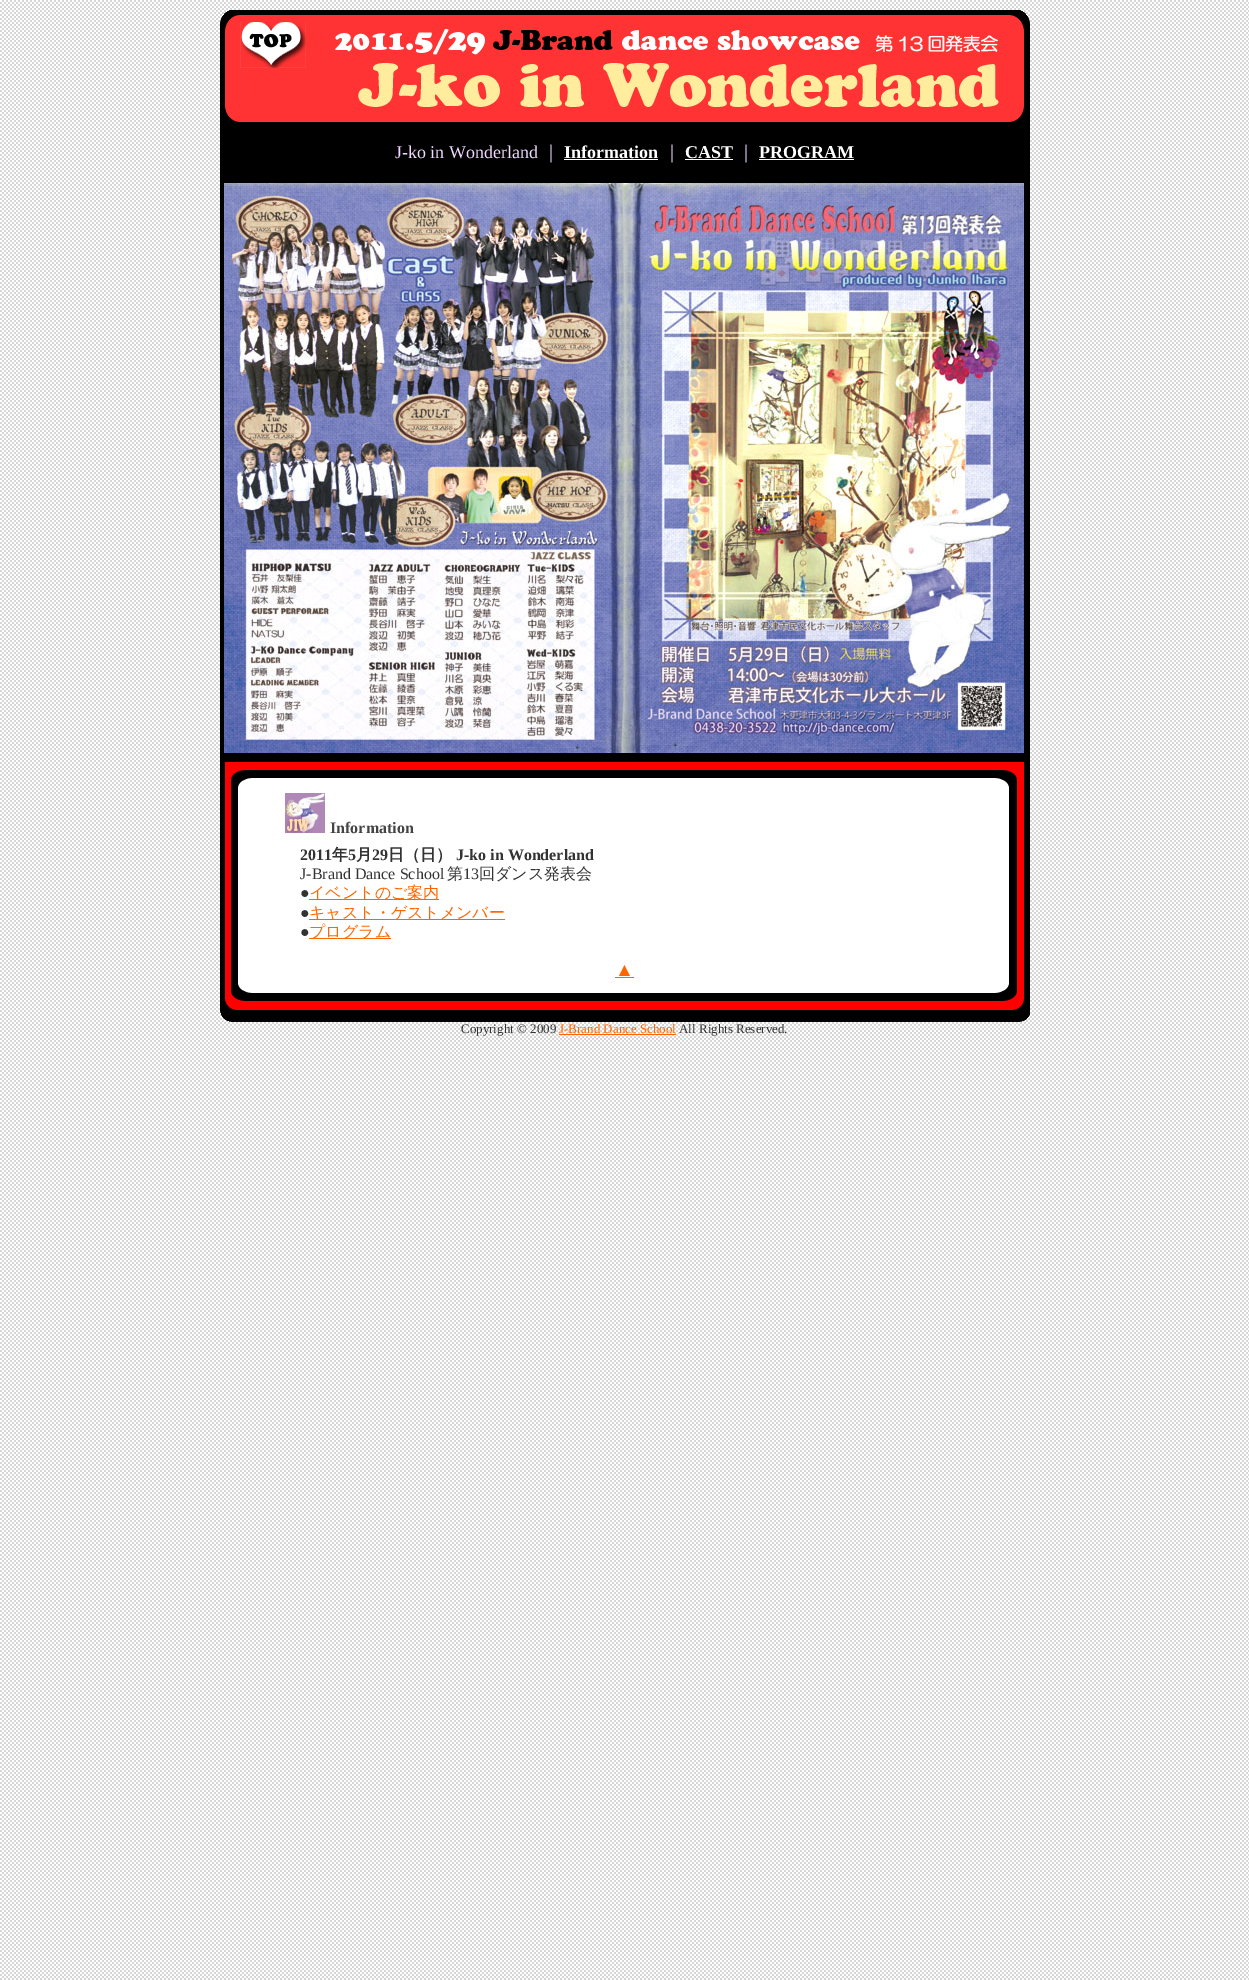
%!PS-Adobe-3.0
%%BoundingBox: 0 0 1249 1980
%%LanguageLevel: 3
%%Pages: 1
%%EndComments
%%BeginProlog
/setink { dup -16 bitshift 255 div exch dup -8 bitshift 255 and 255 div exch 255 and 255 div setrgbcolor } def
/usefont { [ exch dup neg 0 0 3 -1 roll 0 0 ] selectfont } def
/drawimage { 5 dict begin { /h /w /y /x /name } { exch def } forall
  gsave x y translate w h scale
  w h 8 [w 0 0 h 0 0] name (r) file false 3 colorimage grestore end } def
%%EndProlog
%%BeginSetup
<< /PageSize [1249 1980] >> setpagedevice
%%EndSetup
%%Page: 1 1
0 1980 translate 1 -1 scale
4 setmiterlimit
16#FFFFFF setink
0 0 1249 1980 rectfill
(img1.raw) 0 0 1249 1980 drawimage
(img2.raw) 220 10 810 121 drawimage
(img3.raw) 240 22 66 46 drawimage
16#000000 setink
220 131 810 626 rectfill
/LiberationSerif-Regular 18 usefont
16#F0D8FE setink
395 158 moveto (J-ko in Wonderland) show
/WenQuanYiZenHei-Medium 18 usefont
542 158 moveto (｜) show
/LiberationSerif-Bold 18 usefont
16#FFFFFF setink
564 158 moveto (Information) show
564 159 94 1 rectfill
/WenQuanYiZenHei-Medium 18 usefont
16#F0D8FE setink
663 158 moveto (｜) show
/LiberationSerif-Bold 18 usefont
16#FFFFFF setink
685 158 moveto (CAST) show
685 159 48 1 rectfill
/WenQuanYiZenHei-Medium 18 usefont
16#F0D8FE setink
737 158 moveto (｜) show
/LiberationSerif-Bold 18 usefont
16#FFFFFF setink
759 158 moveto (PROGRAM) show
759 159 95 1 rectfill
(img4.raw) 220 757 810 224 drawimage
(img5.raw) 224 183 800 570 drawimage
(img6.raw) 225 757 799 31 drawimage
(img7.raw) 285 793 40 40 drawimage
/LiberationSerif-Bold 16 usefont
16#444444 setink
330 833 moveto (Information) show
16#333333 setink
300 860 moveto (2011) show
/WenQuanYiZenHei-Bold 16 usefont
332 860 moveto (年) show
/LiberationSerif-Bold 16 usefont
348 860 moveto (5) show
/WenQuanYiZenHei-Bold 16 usefont
356 860 moveto (月) show
/LiberationSerif-Bold 16 usefont
372 860 moveto (29) show
/WenQuanYiZenHei-Bold 16 usefont
388 860 moveto (日（日）) show
/LiberationSerif-Bold 16 usefont
456 860 moveto (J-ko in Wonderland) show
/LiberationSerif-Regular 16 usefont
300 879 moveto (J-Brand Dance School) show
/WenQuanYiZenHei-Medium 16 usefont
447 879 moveto (第) show
/LiberationSerif-Regular 16 usefont
463 879 moveto (13) show
/WenQuanYiZenHei-Medium 16 usefont
479 879 moveto (回ダンス発表会) show
/LiberationSerif-Regular 16 usefont
300 898 moveto (●) show
16#FF6600 setink
309 899 130 1 rectfill
/WenQuanYiZenHei-Medium 16 usefont
309 898 moveto (イベントのご案内) show
/LiberationSerif-Regular 16 usefont
16#333333 setink
300 918 moveto (●) show
16#FF6600 setink
309 919 196 1 rectfill
/WenQuanYiZenHei-Medium 16 usefont
309 918 moveto (キャスト・ゲストメンバー) show
/LiberationSerif-Regular 16 usefont
16#333333 setink
300 937 moveto (●) show
16#FF6600 setink
309 938 82 1 rectfill
/WenQuanYiZenHei-Medium 16 usefont
309 937 moveto (プログラム) show
/LiberationSerif-Bold 19 usefont
615 976 moveto (▲) show
615 977 19 1 rectfill
(img8.raw) 220 981 810 41 drawimage
/LiberationSerif-Regular 13 usefont
16#333333 setink
461 1033 moveto (Copyright © 2009) show
16#FF6600 setink
559 1033 moveto (J-Brand Dance School) show
559 1034 117 1 rectfill
16#333333 setink
679 1033 moveto (All Rights Reserved.) show
showpage
%%EOF
